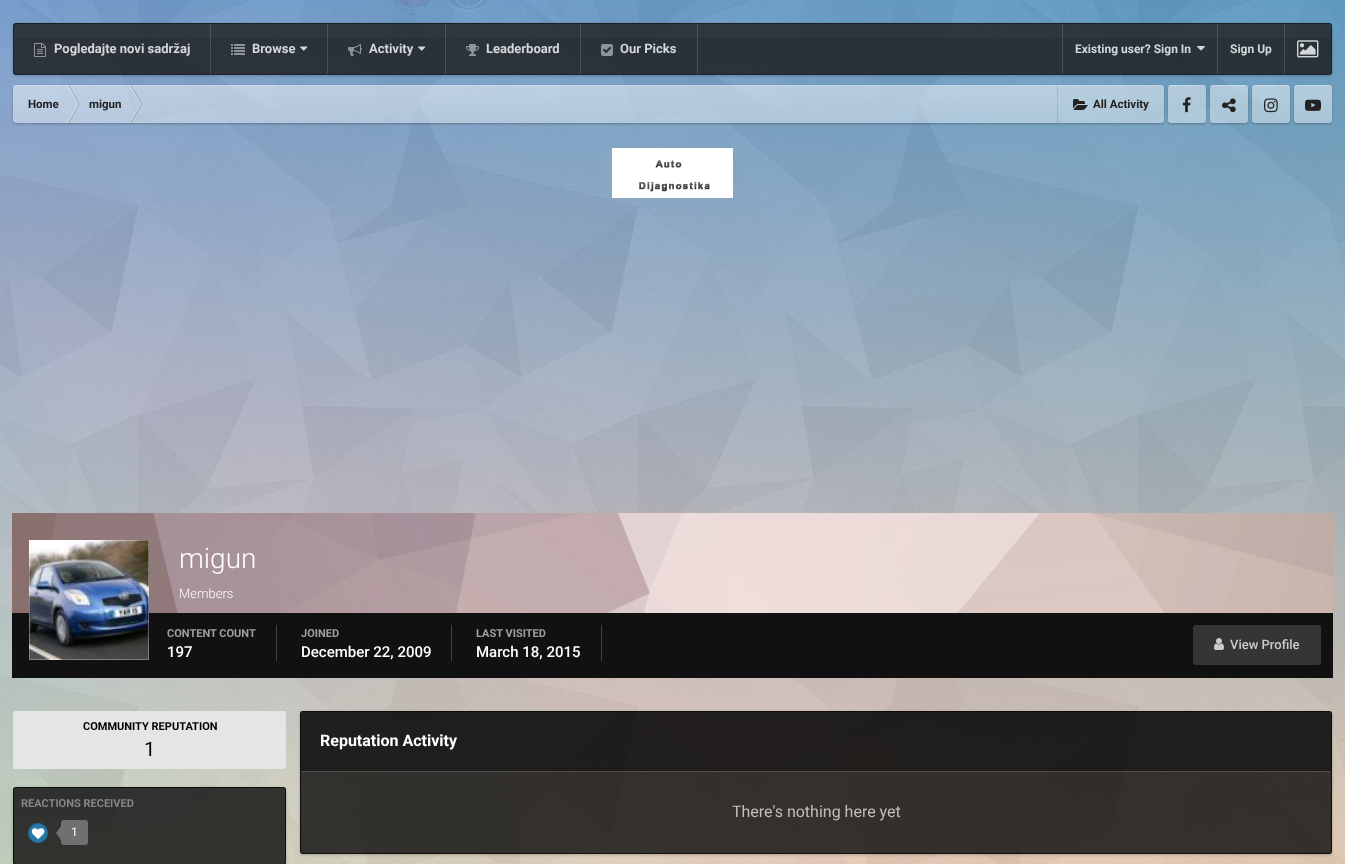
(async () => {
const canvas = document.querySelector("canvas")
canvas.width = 1345
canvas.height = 864
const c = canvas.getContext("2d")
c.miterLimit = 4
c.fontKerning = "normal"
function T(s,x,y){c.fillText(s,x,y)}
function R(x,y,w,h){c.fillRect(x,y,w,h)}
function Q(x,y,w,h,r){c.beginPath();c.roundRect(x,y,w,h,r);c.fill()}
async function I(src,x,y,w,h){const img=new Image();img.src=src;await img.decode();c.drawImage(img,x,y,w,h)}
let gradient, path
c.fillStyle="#fff"
R(0,0,1345,864)
gradient = c.createLinearGradient(1065,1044,280,-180)
gradient.addColorStop(0,"#fff3c5")
gradient.addColorStop(1,"#33a2f9")
c.fillStyle = gradient
R(0,0,1345,864)
gradient = c.createLinearGradient(280,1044,1065,-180)
gradient.addColorStop(0,"#ffe49b73")
gradient.addColorStop(.33,"#f6a39373")
gradient.addColorStop(1,"#07589c73")
c.fillStyle = gradient
R(0,0,1345,864)
await I("1.png",0,0,1345,864)
await I("2.png",393,0,97,16)
c.save()
path = new Path2D("M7 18h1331v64h-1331zm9 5h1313c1.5 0 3 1.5 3 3v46c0 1.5-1.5 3-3 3h-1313c-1.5 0-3-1.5-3-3v-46c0-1.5 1.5-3 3-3z")
c.clip(path,"evenodd")
c.fillStyle="#00000033"
c.filter="blur(1.5px)"
c.beginPath()
c.roundRect(13,24,1319,52,3)
c.fill()
c.filter="none"
c.restore()
c.fillStyle="#171717cc"
Q(13,23,1319,52,3)
gradient = c.createLinearGradient(673,24,673,74)
gradient.addColorStop(0,"#ffffff08")
gradient.addColorStop(1,"#ffffff00")
c.fillStyle = gradient
R(13,24,1319,14)
gradient = c.createLinearGradient(673,74,673,124)
gradient.addColorStop(0,"#ffffff08")
gradient.addColorStop(1,"#ffffff00")
c.fillStyle = gradient
R(13,74,1319,1)
c.beginPath()
c.roundRect(13.5,23.5,1318,51,2.5)
c.strokeStyle="#00000059"
c.stroke()
c.fillStyle="#ffffff26"
R(210,24,1,50)
await I("3.png",34,43,12,14)
c.font="bold 13px Roboto"
c.fillStyle="#d5d7d8"
T("Pogledajte novi sadržaj",54,53)
c.fillStyle="#ffffff26"
R(327,24,1,50)
await I("4.png",231,44,14,11)
c.fillStyle="#d5d7d8"
T("Browse",252,53)
await I("5.png",300,46,8,5)
c.fillStyle="#ffffff26"
R(445,24,1,50)
await I("6.png",348,44,14,12)
c.fillStyle="#d5d7d8"
T("Activity",369,53)
await I("7.png",418,46,8,5)
c.fillStyle="#ffffff26"
R(580,24,1,50)
await I("8.png",466,44,13,12)
c.fillStyle="#d5d7d8"
T("Leaderboard",486,53)
c.fillStyle="#ffffff26"
R(697,24,1,50)
await I("9.png",601,44,12,12)
c.fillStyle="#d5d7d8"
T("Our Picks",620,53)
c.fillStyle="#ffffff26"
R(1062,24,1,50)
R(1217,24,1,50)
c.font="bold 12px Roboto"
c.fillStyle="#d5d7d8"
T("Existing user? Sign In",1075,53)
await I("10.png",1197,46,8,5)
c.fillStyle="#ffffff26"
R(1284,24,1,50)
c.fillStyle="#d5d7d8"
T("Sign Up",1230,53)
await I("11.png",1297,40,22,18)
c.save()
path = new Path2D("M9 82h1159v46h-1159zm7 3h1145c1.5 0 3 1.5 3 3v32c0 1.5-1.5 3-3 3h-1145c-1.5 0-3-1.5-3-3v-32c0-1.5 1.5-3 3-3z")
c.clip(path,"evenodd")
c.fillStyle="#00000040"
c.filter="blur(1px)"
c.beginPath()
c.roundRect(13,86,1151,38,3)
c.fill()
c.filter="none"
c.restore()
c.fillStyle="#ffffff66"
Q(13,85,1151,38,3)
gradient = c.createLinearGradient(589,85,589,123)
gradient.addColorStop(0,"#ffffff26")
gradient.addColorStop(1,"#ffffff00")
c.fillStyle = gradient
Q(13,85,1151,38,3)
c.fillStyle="#ffffff26"
path = new Path2D("M16 86h1145c2 0 3 1 3 3v-1c0-2-1-3-3-3h-1145c-2 0-3 1-3 3v1c0-2 1-3 3-3z")
c.fill(path)
c.font="bold 11.5px Roboto"
c.fillStyle="#222"
T("Home",28,108)
c.fillStyle="#ffffff80"
path = new Path2D("M67 85h1l10.5 19h-1z")
c.fill(path)
c.fillStyle="#00000033"
path = new Path2D("M68 85h1l10.5 19h-1z")
c.fill(path)
c.fillStyle="#ffffff80"
path = new Path2D("M77.5 104h1l-10.5 19h-1z")
c.fill(path)
c.fillStyle="#00000033"
path = new Path2D("M78.5 104h1l-10.5 19h-1z")
c.fill(path)
c.fillStyle="#222"
T("migun",89,108)
c.fillStyle="#ffffff80"
path = new Path2D("M129 85h1l11 19h-1z")
c.fill(path)
c.fillStyle="#00000033"
path = new Path2D("M130 85h1l11 19h-1z")
c.fill(path)
c.fillStyle="#ffffff80"
path = new Path2D("M140 104h1l-11 19h-1z")
c.fill(path)
c.fillStyle="#00000033"
path = new Path2D("M141 104h1l-11 19h-1z")
c.fill(path)
c.fillStyle="#0000001a"
R(1057,85,1,38)
await I("12.png",1073,99,15,11)
c.fillStyle="#222"
T("All Activity",1093,108)
c.save()
path = new Path2D("M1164 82h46v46h-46zm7 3h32c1.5 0 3 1.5 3 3v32c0 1.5-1.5 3-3 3h-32c-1.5 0-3-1.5-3-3v-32c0-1.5 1.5-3 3-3z")
c.clip(path,"evenodd")
c.fillStyle="#00000040"
c.filter="blur(1px)"
c.beginPath()
c.roundRect(1168,86,38,38,3)
c.fill()
c.filter="none"
c.restore()
c.fillStyle="#ffffff66"
Q(1168,85,38,38,3)
gradient = c.createLinearGradient(1187,85,1187,123)
gradient.addColorStop(0,"#ffffff26")
gradient.addColorStop(1,"#ffffff00")
c.fillStyle = gradient
Q(1168,85,38,38,3)
c.fillStyle="#ffffff26"
path = new Path2D("M1171 86h32c2 0 3 1 3 3c0-5-4-4-8.5-4h-21c-4.5 0-8.5-1-8.5 4c0-2 1-3 3-3z")
c.fill(path)
path = new Path2D("M1171 86c-2 0-3 1-3 3c0-5 4-4 8.5-4h21c4.5 0 8.5-1 8.5 4c0-2-1-3-3-3z")
c.fill(path)
await I("13.png",1182,97,9,16)
c.save()
path = new Path2D("M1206 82h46v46h-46zm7 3h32c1.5 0 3 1.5 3 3v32c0 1.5-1.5 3-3 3h-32c-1.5 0-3-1.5-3-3v-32c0-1.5 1.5-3 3-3z")
c.clip(path,"evenodd")
c.fillStyle="#00000040"
c.filter="blur(1px)"
c.beginPath()
c.roundRect(1210,86,38,38,3)
c.fill()
c.filter="none"
c.restore()
c.fillStyle="#ffffff66"
Q(1210,85,38,38,3)
gradient = c.createLinearGradient(1229,85,1229,123)
gradient.addColorStop(0,"#ffffff26")
gradient.addColorStop(1,"#ffffff00")
c.fillStyle = gradient
Q(1210,85,38,38,3)
c.fillStyle="#ffffff26"
path = new Path2D("M1213 86h32c2 0 3 1 3 3c0-5-4-4-8.5-4h-21c-4.5 0-8.5-1-8.5 4c0-2 1-3 3-3z")
c.fill(path)
path = new Path2D("M1213 86c-2 0-3 1-3 3c0-5 4-4 8.5-4h21c4.5 0 8.5-1 8.5 4c0-2-1-3-3-3z")
c.fill(path)
await I("14.png",1222,98,14,15)
c.save()
path = new Path2D("M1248 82h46v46h-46zm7 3h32c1.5 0 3 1.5 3 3v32c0 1.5-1.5 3-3 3h-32c-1.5 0-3-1.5-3-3v-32c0-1.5 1.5-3 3-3z")
c.clip(path,"evenodd")
c.fillStyle="#00000040"
c.filter="blur(1px)"
c.beginPath()
c.roundRect(1252,86,38,38,3)
c.fill()
c.filter="none"
c.restore()
c.fillStyle="#ffffff66"
Q(1252,85,38,38,3)
gradient = c.createLinearGradient(1271,85,1271,123)
gradient.addColorStop(0,"#ffffff26")
gradient.addColorStop(1,"#ffffff00")
c.fillStyle = gradient
Q(1252,85,38,38,3)
c.fillStyle="#ffffff26"
path = new Path2D("M1255 86h32c2 0 3 1 3 3c0-5-4-4-8.5-4h-21c-4.5 0-8.5-1-8.5 4c0-2 1-3 3-3z")
c.fill(path)
path = new Path2D("M1255 86c-2 0-3 1-3 3c0-5 4-4 8.5-4h21c4.5 0 8.5-1 8.5 4c0-2-1-3-3-3z")
c.fill(path)
await I("15.png",1264,98,14,15)
c.save()
path = new Path2D("M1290 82h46v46h-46zm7 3h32c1.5 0 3 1.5 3 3v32c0 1.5-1.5 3-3 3h-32c-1.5 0-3-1.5-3-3v-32c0-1.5 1.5-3 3-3z")
c.clip(path,"evenodd")
c.fillStyle="#00000040"
c.filter="blur(1px)"
c.beginPath()
c.roundRect(1294,86,38,38,3)
c.fill()
c.filter="none"
c.restore()
c.fillStyle="#ffffff66"
Q(1294,85,38,38,3)
gradient = c.createLinearGradient(1313,85,1313,123)
gradient.addColorStop(0,"#ffffff26")
gradient.addColorStop(1,"#ffffff00")
c.fillStyle = gradient
Q(1294,85,38,38,3)
c.fillStyle="#ffffff26"
path = new Path2D("M1297 86h32c2 0 3 1 3 3c0-5-4-4-8.5-4h-21c-4.5 0-8.5-1-8.5 4c0-2 1-3 3-3z")
c.fill(path)
path = new Path2D("M1297 86c-2 0-3 1-3 3c0-5 4-4 8.5-4h21c4.5 0 8.5-1 8.5 4c0-2-1-3-3-3z")
c.fill(path)
await I("16.png",1305,99,16,12)
await I("17.png",612,148,121,50)
c.fillStyle="#ffa099"
R(12,513,1321,100)
await I("18.png",12,513,1321,100)
c.fillStyle="#111"
R(12,613,1321,65)
await I("19.png",29,540,120,120)
c.strokeStyle="#ffffff4d"
c.strokeRect(29.5,540.5,119,119)
c.font="300 28px Roboto"
c.fillStyle="#fff"
T("migun",179,568)
c.font="300 13px Roboto"
T("Members",179,598)
c.fillStyle="#414141"
R(276,625,1,36)
c.font="bold 11px Roboto"
c.fillStyle="#a0a0a0"
T("CONTENT COUNT",167,637)
c.font="500 15px Roboto"
c.fillStyle="#fff"
T("197",167,657)
c.fillStyle="#414141"
R(451,625,1,36)
c.font="bold 11px Roboto"
c.fillStyle="#a0a0a0"
T("JOINED",301,637)
c.font="500 15px Roboto"
c.fillStyle="#fff"
T("December 22, 2009",301,657)
c.fillStyle="#414141"
R(601,625,1,36)
c.font="bold 11px Roboto"
c.fillStyle="#a0a0a0"
T("LAST VISITED",476,637)
c.font="500 15px Roboto"
c.fillStyle="#fff"
T("March 18, 2015",476,657)
c.fillStyle="#353535"
Q(1193,625,128,40,3)
await I("20.png",1214,638,10,12)
c.font="500 13px Roboto"
c.fillStyle="#ccc"
T("View Profile",1230,649)
c.fillStyle="#e5e5e5"
Q(13,711,273,58,2)
c.font="bold 11px Roboto"
c.fillStyle="#000"
T("COMMUNITY REPUTATION",83,730)
c.font="20px Roboto"
T("1",144,756)
c.save()
path = new Path2D("M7 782h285v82h-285zm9 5h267c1.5 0 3 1.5 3 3v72c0 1.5-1.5 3-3 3h-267c-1.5 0-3-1.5-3-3v-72c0-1.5 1.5-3 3-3z")
c.clip(path,"evenodd")
c.fillStyle="#00000033"
c.filter="blur(1.5px)"
c.beginPath()
c.roundRect(13,788,273,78,3)
c.fill()
c.filter="none"
c.restore()
c.fillStyle="#0a0a0acc"
Q(13,787,273,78,3)
c.beginPath()
c.roundRect(13.5,787.5,272,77,2.5)
c.strokeStyle="#000000b3"
c.stroke()
c.font="bold 11px Roboto"
c.fillStyle="#878787"
T("REACTIONS RECEIVED",21,807)
await I("21.png",28,822,20,21)
c.fillStyle="#707070"
Q(61,820,27,25,3)
path = new Path2D("M61 826v14l-5-7z")
c.fill(path)
c.font="12px Roboto"
c.fillStyle="#fff"
T("1",71,836)
c.save()
path = new Path2D("M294 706h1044v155h-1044zm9 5h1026c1.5 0 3 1.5 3 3v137c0 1.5-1.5 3-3 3h-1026c-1.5 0-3-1.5-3-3v-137c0-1.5 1.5-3 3-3z")
c.clip(path,"evenodd")
c.fillStyle="#00000033"
c.filter="blur(1.5px)"
c.beginPath()
c.roundRect(300,712,1032,143,3)
c.fill()
c.filter="none"
c.restore()
c.fillStyle="#0a0a0acc"
Q(300,711,1032,143,3)
c.beginPath()
c.roundRect(300.5,711.5,1031,142,2.5)
c.stroke()
c.fillStyle="#ffffff26"
R(301,771,1030,1)
c.fillStyle="#00000059"
c.beginPath()
c.roundRect(301,712,1030,59,[3,3,0,0])
c.fill()
c.fillStyle="#0000001a"
R(301,770,1030,1)
c.font="bold 16px Roboto"
c.fillStyle="#fff"
T("Reputation Activity",320,746)
c.font="16px Roboto"
c.fillStyle="#bfbfbf"
T("There's nothing here yet",732,817)
})()
